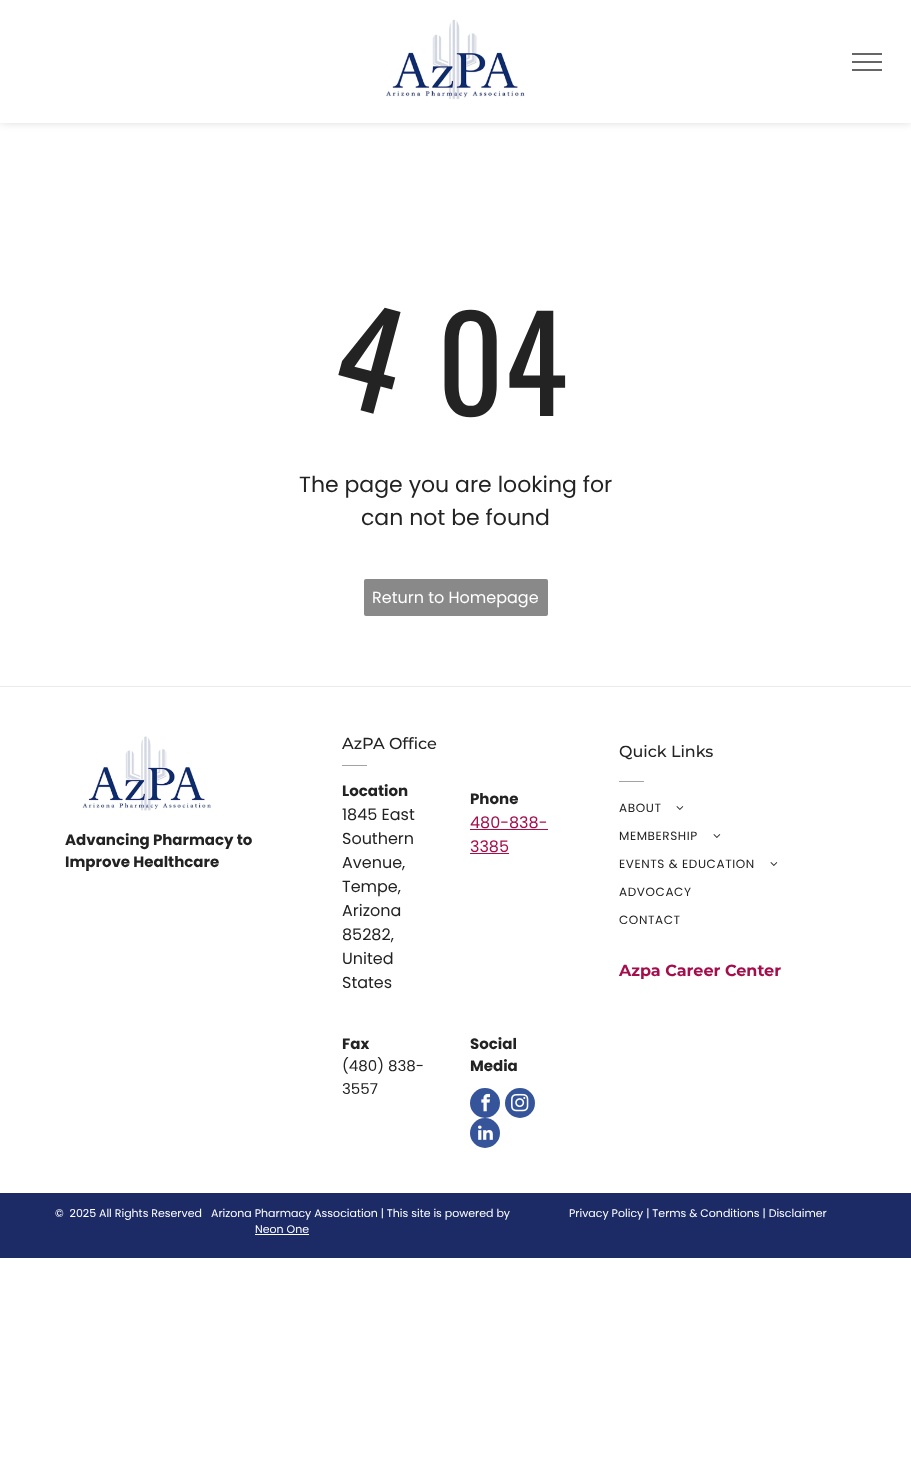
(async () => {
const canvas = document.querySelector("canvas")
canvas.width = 911
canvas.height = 1480
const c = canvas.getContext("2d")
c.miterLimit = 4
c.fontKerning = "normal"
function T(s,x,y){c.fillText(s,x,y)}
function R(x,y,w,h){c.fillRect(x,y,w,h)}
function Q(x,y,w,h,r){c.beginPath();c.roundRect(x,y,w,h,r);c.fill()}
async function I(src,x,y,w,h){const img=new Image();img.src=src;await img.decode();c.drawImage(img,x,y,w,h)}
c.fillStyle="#fff"
R(0,0,911,1480)
c.fillStyle="#00000040"
c.filter="blur(5.5px)"
c.beginPath()
c.rect(0,-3,911,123)
c.fill()
c.filter="none"
c.fillStyle="#fff"
R(0,0,911,123)
await I("1.png",386,19,139,81)
c.fillStyle="#666"
R(852,53,30,2)
R(852,61,30,2)
R(852,69,30,2)
c.font="130px Oswald"
c.fillStyle="#232323"
c.save()
c.translate(326,401)
c.rotate(15 * Math.PI / 180)
c.fillText("4",0,0)
c.restore()
T("04",437,416)
c.font="22px Poppins"
T("The page you are looking for",299,492)
T("can not be found",361,525)
c.fillStyle="#898989"
Q(364,579,184,37,2)
c.font="16px Poppins"
c.fillStyle="#fff"
T("Return to Homepage",372,603)
c.fillStyle="#ebebeb"
R(0,686,911,1)
await I("2.png",82,736,129,75)
c.font="bold 15px Poppins"
c.fillStyle="#232323"
T("Advancing Pharmacy to",65,845)
T("Improve Healthcare",65,867)
c.font="500 16px Montserrat"
T("AzPA Office",342,749)
c.fillStyle="#a3a3a3"
R(342,765,25,1)
c.font="bold 15px Poppins"
c.fillStyle="#232323"
T("Location",342,796)
c.font="16px Poppins"
T("1845 East",342,820)
T("Southern",342,844)
T("Avenue,",342,868)
T("Tempe,",342,892)
T("Arizona",342,916)
T("85282,",342,940)
T("United",342,964)
T("States",342,988)
c.font="bold 15px Poppins"
T("Phone",470,804)
c.font="16px Poppins"
c.fillStyle="#a40e4c"
T("480-838-",470,828)
R(470,829,78,1)
T("3385",470,852)
R(470,853,39,1)
c.font="bold 15px Poppins"
c.fillStyle="#232323"
T("Fax",342,1049)
c.font="15px Poppins"
T("(480) 838-",342,1071)
T("3557",342,1094)
c.font="bold 15px Poppins"
T("Social",470,1049)
T("Media",470,1071)
c.fillStyle="#36549a"
c.beginPath()
c.arc(485,1103,15,0,7)
c.fill()
await I("3.png",481,1093,9,19)
c.beginPath()
c.arc(520,1103,15,0,7)
c.fill()
await I("4.png",511,1093,18,19)
c.beginPath()
c.arc(485,1133,15,0,7)
c.fill()
await I("5.png",478,1125,15,15)
c.font="500 16px Montserrat"
c.fillStyle="#232323"
T("Quick Links",619,757)
c.fillStyle="#a3a3a3"
R(619,781,25,1)
c.letterSpacing="0.6px"
c.font="12px Poppins"
c.fillStyle="#232323"
T("ABOUT",619,812)
await I("6.png",676,806,8,4)
T("MEMBERSHIP",619,840)
await I("6.png",713,834,8,4)
T("EVENTS & EDUCATION",619,868)
await I("6.png",770,862,8,4)
T("ADVOCACY",619,896)
T("CONTACT",619,924)
c.letterSpacing="0px"
c.font="bold 16px Montserrat"
c.fillStyle="#a40e4c"
T("Azpa Career Center",619,976)
c.fillStyle="#1c2a66"
R(0,1193,911,65)
c.font="11px Poppins"
c.fillStyle="#fff"
T("©  2025 All Rights Reserved",55,1217)
T("Arizona Pharmacy Association | This site is powered by",211,1217)
T("Neon One",255,1233)
R(255,1234,54,1)
T("Privacy Policy | Terms & Conditions | Disclaimer",569,1217)
})()
